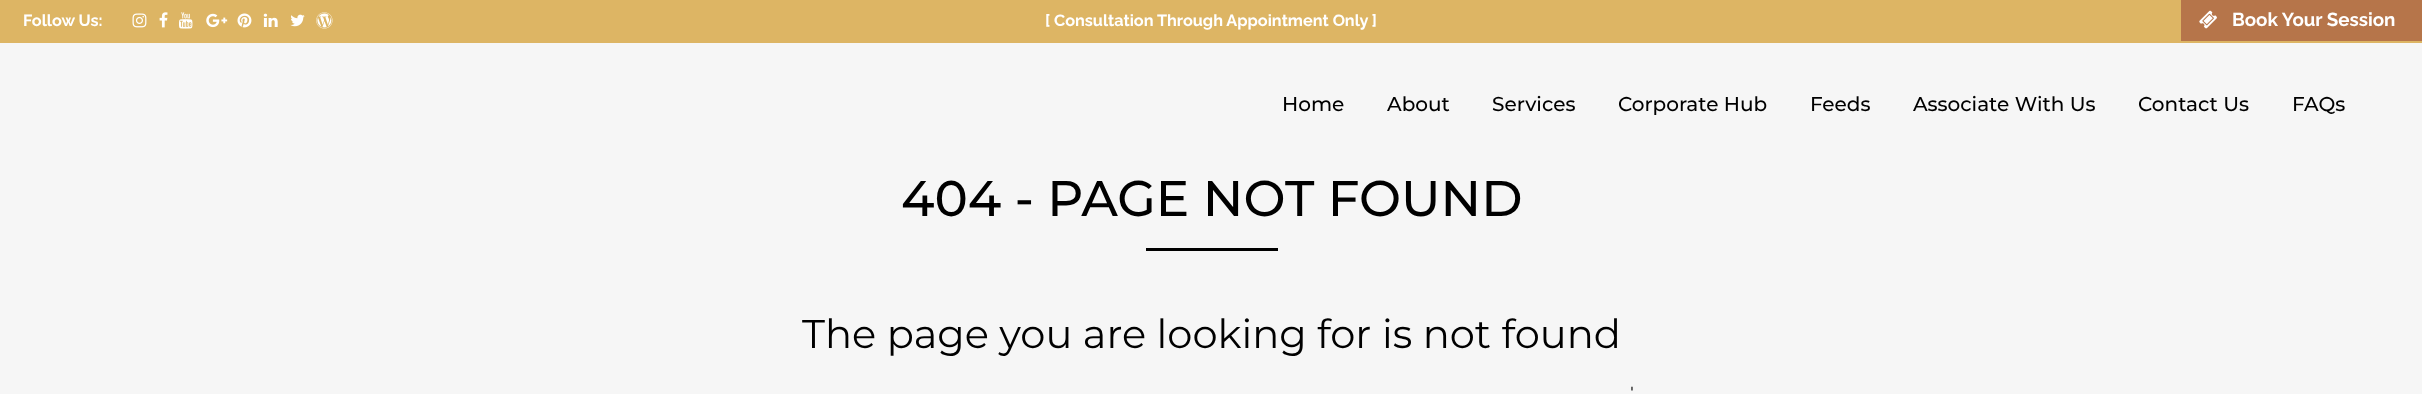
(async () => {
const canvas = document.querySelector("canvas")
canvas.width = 2422
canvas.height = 394
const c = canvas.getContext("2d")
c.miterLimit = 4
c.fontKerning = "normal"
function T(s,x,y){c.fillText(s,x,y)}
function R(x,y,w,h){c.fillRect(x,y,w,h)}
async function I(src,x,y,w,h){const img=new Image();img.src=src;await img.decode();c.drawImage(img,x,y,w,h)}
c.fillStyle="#f6f6f6"
R(0,0,2422,394)
c.fillStyle="#ddb564"
R(0,0,2422,43)
c.font="bold 16.25px Raleway"
c.fillStyle="#fff"
T("Follow Us:",23,26)
await I("1.png",132,13,15,15)
await I("2.png",159,12,9,16)
await I("3.png",179,12,14,17)
await I("4.png",206,13,22,15)
await I("5.png",237,13,15,15)
await I("6.png",263,13,15,14)
await I("7.png",290,14,15,13)
await I("8.png",316,12,17,17)
T("[ Consultation Through Appointment Only ]",1045,26)
c.fillStyle="#b6754a"
R(2181,0,241,41)
await I("9.png",2199,10,18,19)
c.font="bold 18.75px Raleway"
c.fillStyle="#fff"
T("Book Your Session",2232,26)
c.font="500 20px Montserrat"
c.fillStyle="#000"
T("Home",1282,111)
T("About",1387,111)
T("Services",1492,111)
T("Corporate Hub",1618,111)
T("Feeds",1810,111)
T("Associate With Us",1913,111)
T("Contact Us",2138,111)
T("FAQs",2292,111)
c.font="500 50px Montserrat"
T("404 - PAGE NOT FOUND",901,216)
R(1146,248,132,3)
c.font="40px Montserrat"
T("The page you are looking for is not found",802,348)
c.font="20px Raleway"
T("'",1630,401)
})()
